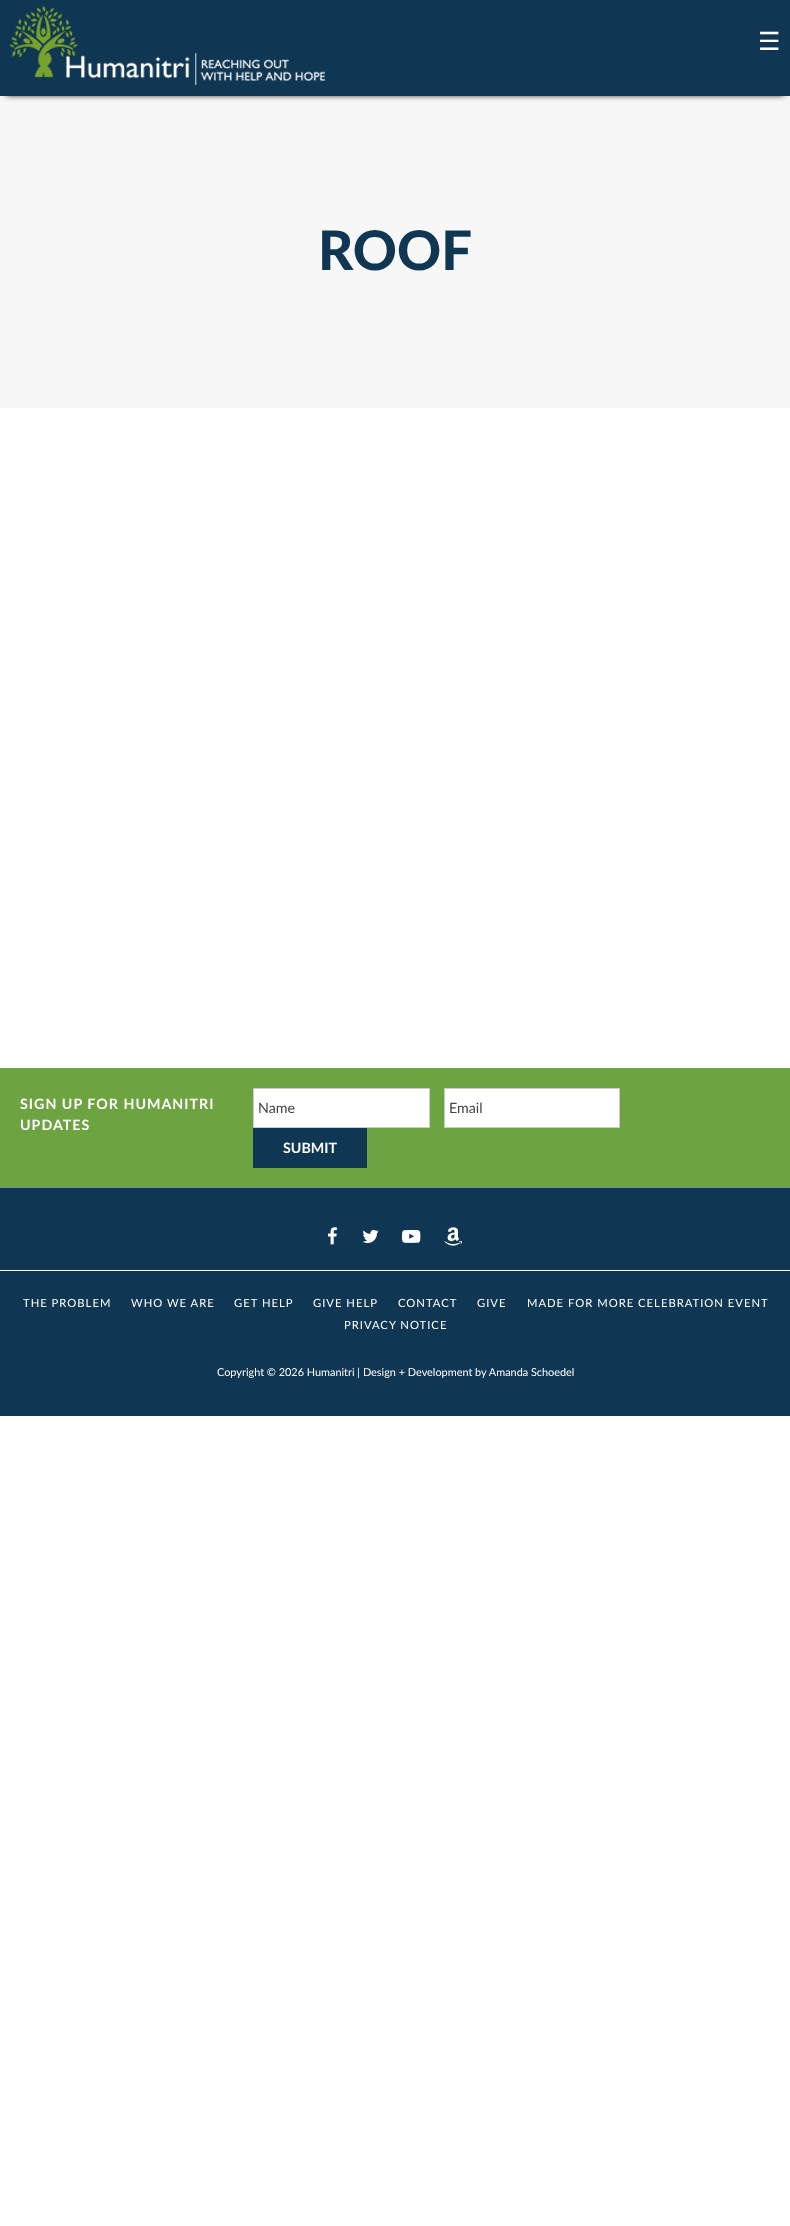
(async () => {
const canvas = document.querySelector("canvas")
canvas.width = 790
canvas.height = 2226
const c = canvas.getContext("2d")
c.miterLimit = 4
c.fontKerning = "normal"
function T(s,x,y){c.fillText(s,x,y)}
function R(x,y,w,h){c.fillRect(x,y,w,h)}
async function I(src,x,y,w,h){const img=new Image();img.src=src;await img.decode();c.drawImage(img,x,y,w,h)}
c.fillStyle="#fff"
R(0,0,790,2226)
c.fillStyle="#f7f7f7"
R(0,96,790,312)
c.fillStyle="#000"
c.filter="blur(3px)"
c.beginPath()
c.rect(6,11,778,84)
c.fill()
c.filter="none"
c.fillStyle="#0f3652"
R(0,0,790,96)
await I("1.png",10,6,315,79)
c.font="25px DejaVu Sans"
c.fillStyle="#fff"
T("☰",758,50)
c.font="900 54.5px Lato"
c.fillStyle="#0f3652"
T("ROOF",318,270)
c.fillStyle="#6da341"
R(0,1068,790,120)
c.letterSpacing="1px"
c.font="bold 14.25px Lato"
c.fillStyle="#fff"
T("SIGN UP FOR HUMANITRI",20,1109)
T("UPDATES",20,1130)
c.beginPath()
c.rect(253.5,1088.5,176,39)
c.fill()
c.strokeStyle="#ccc"
c.stroke()
c.letterSpacing="0px"
c.font="14.25px Lato"
c.fillStyle="#444"
T("Name",258,1113)
c.fillStyle="#fff"
c.beginPath()
c.rect(444.5,1088.5,175,39)
c.fill()
c.stroke()
c.fillStyle="#444"
T("Email",449,1113)
c.fillStyle="#0f3652"
R(253,1128,114,40)
c.font="bold 14.25px Lato"
c.fillStyle="#fff"
T("SUBMIT",283,1153)
c.fillStyle="#0f3652"
R(0,1188,790,228)
await I("2.png",327,1227,10,18)
await I("3.png",362,1229,17,14)
await I("4.png",402,1230,19,13)
await I("5.png",444,1227,18,19)
c.fillStyle="#fff"
R(0,1270,790,1)
c.letterSpacing="1px"
c.font="11.25px Lato"
T("THE PROBLEM",23,1307)
T("WHO WE ARE",131,1307)
T("GET HELP",234,1307)
T("GIVE HELP",313,1307)
T("CONTACT",398,1307)
T("GIVE",477,1307)
T("MADE FOR MORE CELEBRATION EVENT",527,1307)
T("PRIVACY NOTICE",344,1329)
c.letterSpacing="0px"
c.font="10.9px Lato"
T("Copyright © 2026 Humanitri | Design + Development by Amanda Schoedel",217,1376)
})()
